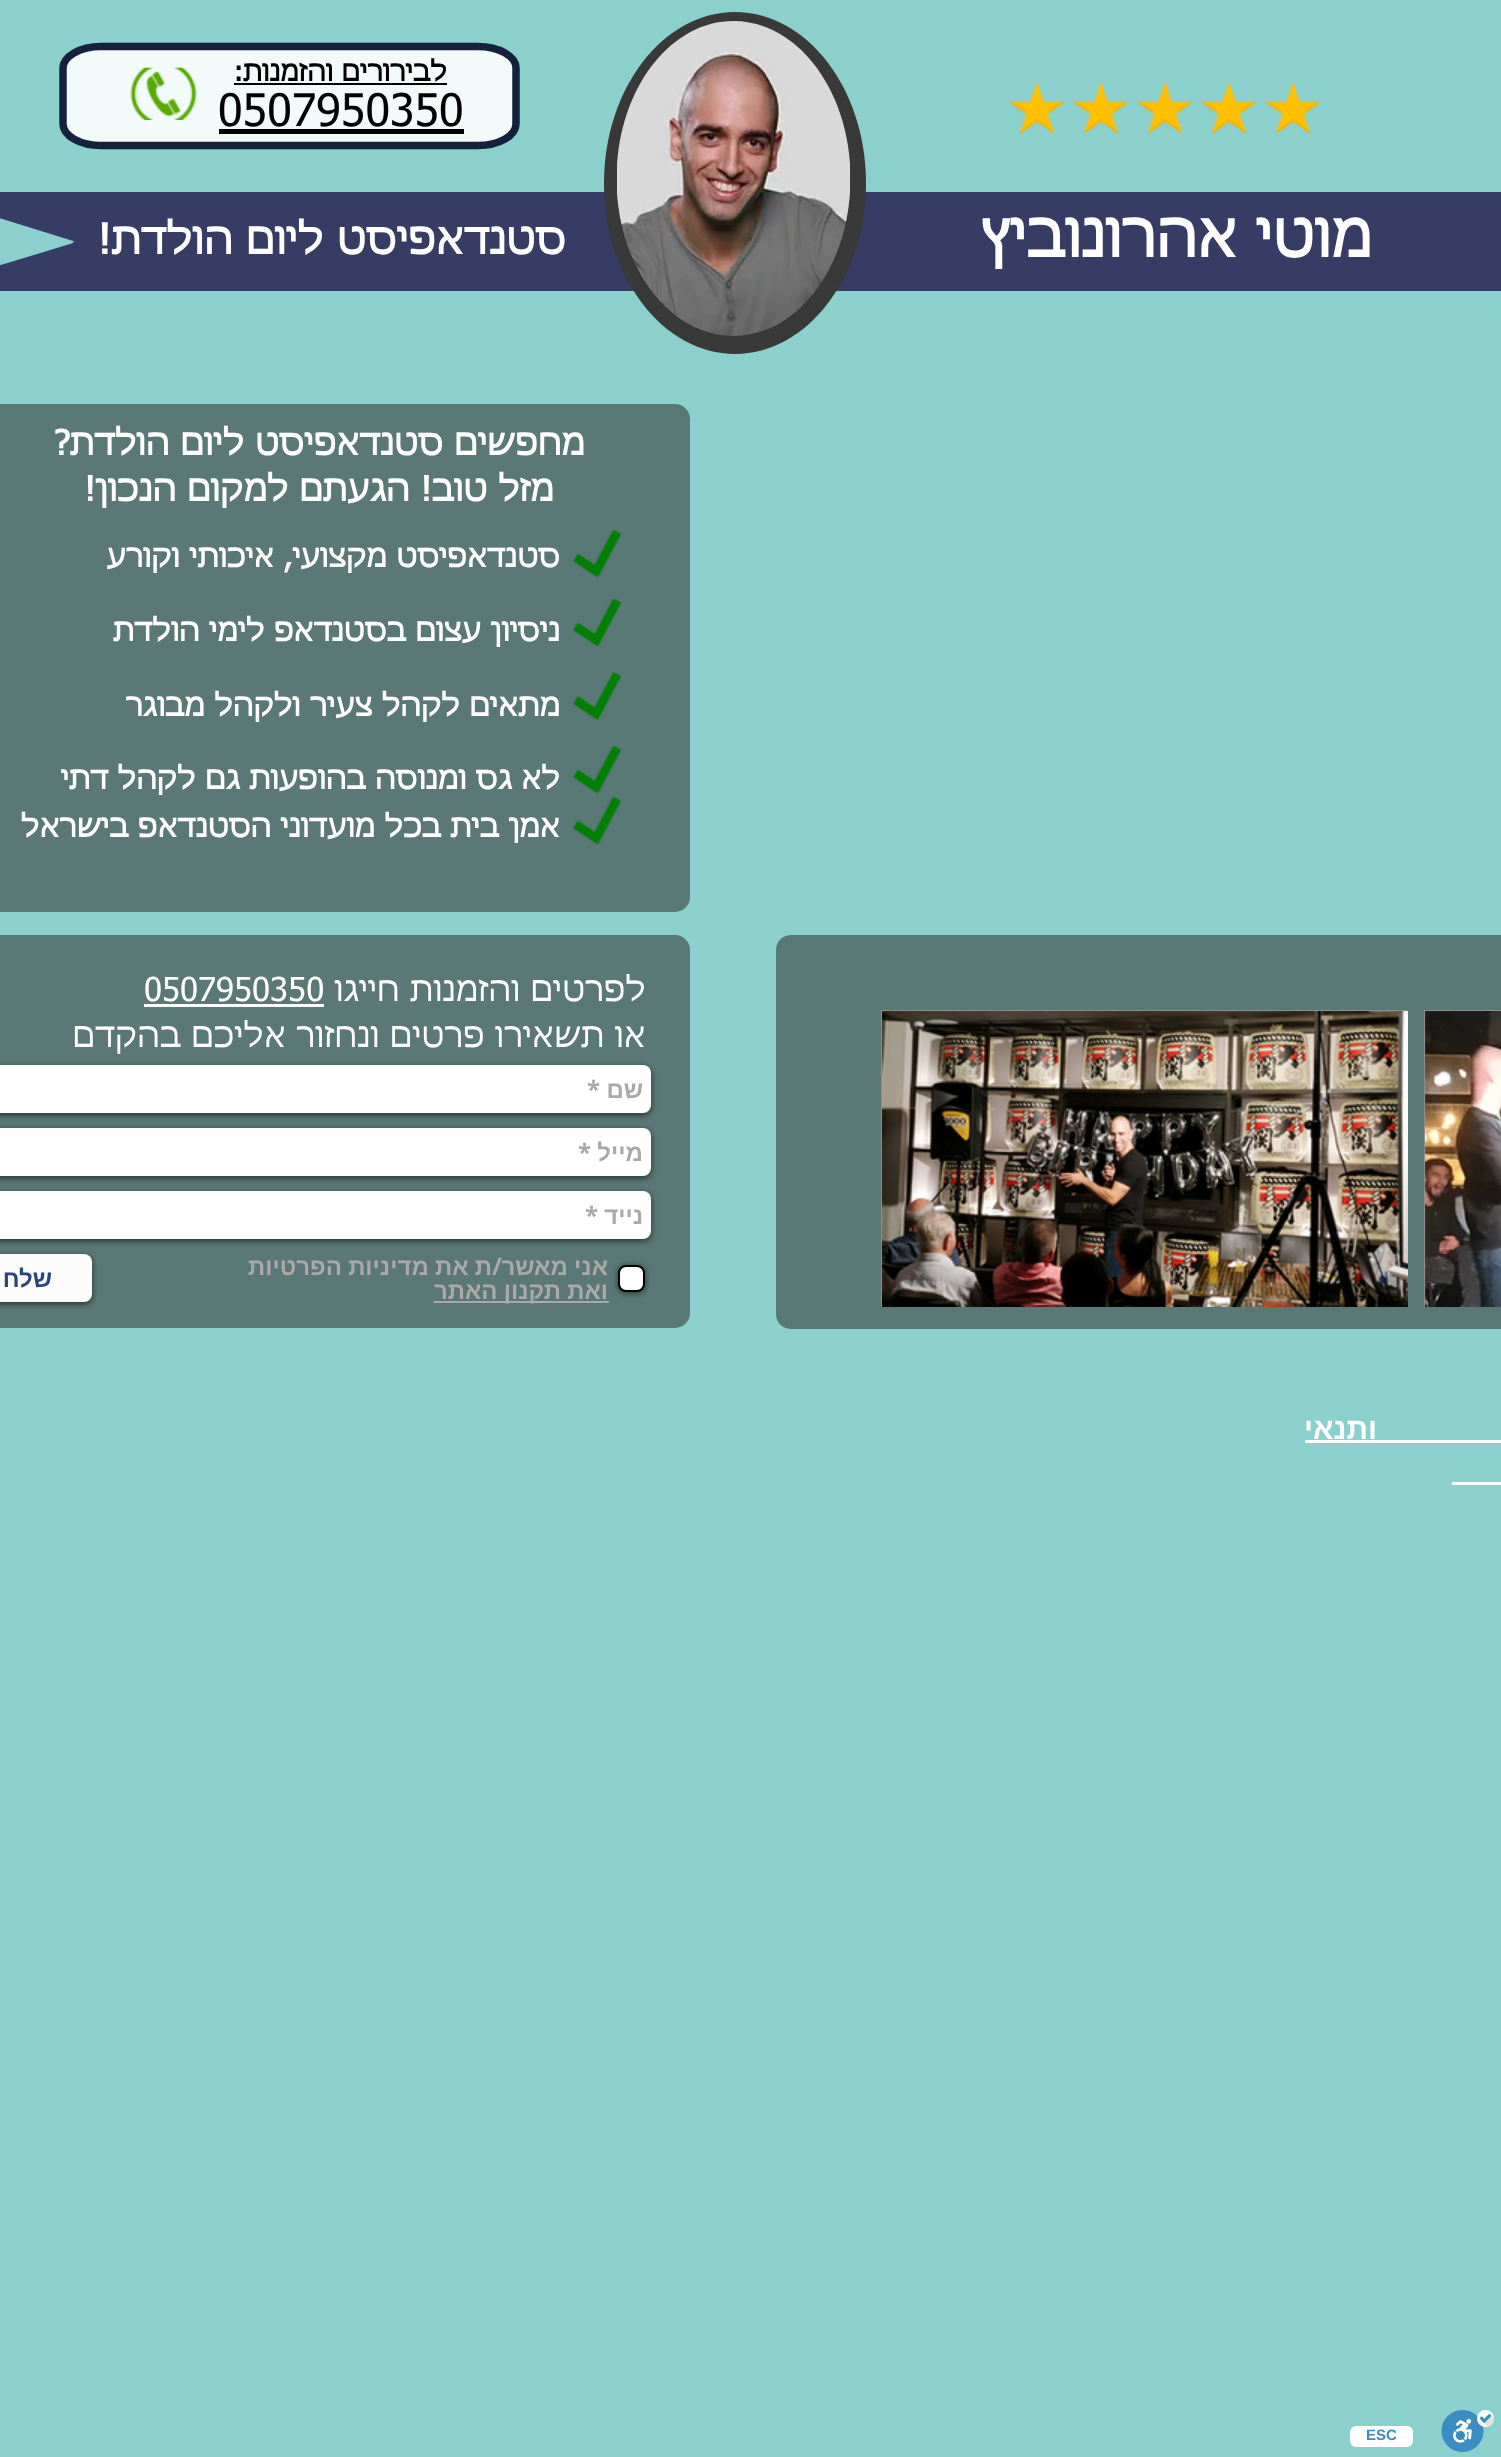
(async () => {
const canvas = document.querySelector("canvas")
canvas.width = 1501
canvas.height = 2457
const c = canvas.getContext("2d")
c.miterLimit = 4
c.fontKerning = "normal"
function T(s,x,y){c.fillText(s,x,y)}
function R(x,y,w,h){c.fillRect(x,y,w,h)}
function Q(x,y,w,h,r){c.beginPath();c.roundRect(x,y,w,h,r);c.fill()}
async function I(src,x,y,w,h){const img=new Image();img.src=src;await img.decode();c.drawImage(img,x,y,w,h)}
let path
c.fillStyle="#8bd0cd"
R(0,0,1501,2457)
await I("1.png",1008,81,314,54)
c.fillStyle="#363c63"
path = new Path2D("M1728 197c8-2 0-5-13-5h-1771c-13 0-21 3-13 5l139 43c5 1 5 2 0 4l-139 42c-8 2 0 5 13 5h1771c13 0 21-3 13-5l-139-43c-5-1-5-2 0-4z")
c.fill(path)
c.fillStyle="#393939"
path = new Path2D("M866 183c0 94-59 171-131 171c-72 0-131-77-131-171c0-94 59-171 131-171c72 0 131 77 131 171z")
c.fill(path)
await I("2.png",617,21,234,315)
c.fillStyle="#f2fafa"
path = new Path2D("M478 145h-377c-21 0-38-9-38-21v-56c0-12 17-22 38-22h377c21 0 38 10 38 22v56c0 12-17 21-38 21z")
c.fill(path)
path = new Path2D("M478 145.5h-377c-20.5 0-38-9.5-38-21.5v-56c0-11.5 17-21.5 38-21.5h377c20.5 0 38 9.5 38 21.5v56c0 12-17.5 21.5-38 21.5z")
c.strokeStyle="#16223d"
c.lineWidth=7.5
c.stroke(path)
c.direction="rtl"
c.font="bold 27px tahoma"
c.fillStyle="#000"
T("לבירורים והזמנות:",447,81)
R(234,83,213,2)
await I("3.png",130,67,67,53)
c.direction="ltr"
c.font="45px tahoma"
T("0507950350",218,126)
R(219,129,245,5)
c.direction="rtl"
c.font="bold 60px tahoma"
c.fillStyle="#fff"
T("מוטי אהרונוביץ",1372,257)
c.font="bold 42px tahoma"
T("סטנדאפיסט ליום הולדת!",566,254)
c.fillStyle="#597876"
c.beginPath()
c.roundRect(0,404,690,508,[0,15,15,0])
c.fill()
c.font="bold 34.5px tahoma"
c.fillStyle="#fff"
T("מחפשים סטנדאפיסט ליום הולדת?",585,455)
await I("4.png",573,529,48,49)
T("מזל טוב! הגעתם למקום הנכון!",554,501)
await I("4.png",573,796,48,49)
c.font="bold 30px tahoma"
T("אמן בית בכל מועדוני הסטנדאפ בישראל",560,837)
T("סטנדאפיסט מקצועי, איכותי וקורע",560,567)
await I("4.png",573,598,48,49)
T("ניסיון עצום בסטנדאפ לימי הולדת",560,641)
await I("5.png",573,672,48,48)
T("מתאים לקהל צעיר ולקהל מבוגר",560,716)
await I("4.png",573,745,48,49)
T("לא גס ומנוסה בהופעות גם לקהל דתי",560,789)
c.fillStyle="#597876"
path = new Path2D("M791 935h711v394h-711c-8.5 0-15-6.5-15-15v-364c0-8.5 6.5-15 15-15z")
c.fill(path)
c.fillStyle="#8d8d8d"
R(1424,1010,77,297)
await I("6.png",1425,1011,76,296)
R(881,1010,526,297)
await I("7.png",882,1011,526,296)
c.fillStyle="#597876"
c.beginPath()
c.roundRect(0,935,690,393,[0,15,15,0])
c.fill()
c.font="33px 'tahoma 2'"
c.fillStyle="#fff"
T("לפרטים והזמנות חייגו",646,1001)
c.direction="ltr"
c.font="33px tahoma"
T("0507950350",144,1001)
R(144,1004,180,3)
c.direction="rtl"
c.font="33px 'tahoma 2'"
T("או תשאירו פרטים ונחזור אליכם בהקדם",646,1047)
c.fillStyle="#00000099"
c.filter="blur(3px)"
c.beginPath()
c.roundRect(-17,1067,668,48,8)
c.fill()
c.filter="none"
c.fillStyle="#fff"
c.beginPath()
c.roundRect(0,1065,651,48,[0,8,8,0])
c.fill()
c.font="bold 24px Liberation Sans"
c.fillStyle="#a9a9a9"
T("שם",643,1098)
c.font="bold 24px Open Sans"
T("*",600,1098)
c.fillStyle="#00000099"
c.filter="blur(3px)"
c.beginPath()
c.roundRect(-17,1130,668,48,8)
c.fill()
c.filter="none"
c.fillStyle="#fff"
c.beginPath()
c.roundRect(0,1128,651,48,[0,8,8,0])
c.fill()
c.font="bold 24px Liberation Sans"
c.fillStyle="#a9a9a9"
T("מייל",643,1161)
c.font="bold 24px Open Sans"
T("*",591,1161)
c.fillStyle="#00000099"
c.filter="blur(3px)"
c.beginPath()
c.roundRect(-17,1193,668,48,8)
c.fill()
c.filter="none"
c.fillStyle="#fff"
c.beginPath()
c.roundRect(0,1191,651,48,[0,8,8,0])
c.fill()
c.font="bold 24px Liberation Sans"
c.fillStyle="#a9a9a9"
T("נייד",643,1224)
c.font="bold 24px Open Sans"
T("*",598,1224)
R(434,1301,175,2)
c.fillStyle="#00000099"
c.filter="blur(3px)"
c.beginPath()
c.roundRect(618,1266,27,27,8)
c.fill()
c.filter="none"
c.fillStyle="#fff"
c.beginPath()
c.roundRect(619,1266,25,25,7)
c.fill()
c.strokeStyle="#000"
c.lineWidth=2
c.stroke()
c.wordSpacing="-0.5px"
c.font="bold 24px Liberation Sans"
c.fillStyle="#a9a9a9"
T("אני מאשר",608,1275)
c.wordSpacing="0px"
c.font="bold 24px Open Sans"
T("/",502,1275)
c.wordSpacing="-0.5px"
c.font="bold 24px Liberation Sans"
T("ת את מדיניות הפרטיות",492,1275)
T("ואת תקנון האתר",608,1299)
c.fillStyle="#00000099"
c.filter="blur(3px)"
c.beginPath()
c.roundRect(-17,1256,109,48,8)
c.fill()
c.filter="none"
c.fillStyle="#fcfcfc"
c.beginPath()
c.roundRect(0,1254,92,48,[0,8,8,0])
c.fill()
c.wordSpacing="0px"
c.fillStyle="#2c447a"
T("שלח",52,1287)
c.font="bold 30px Liberation Sans"
c.fillStyle="#fff"
T("ותנאי",1377,1439)
R(1305,1440,196,3)
R(1452,1482,49,3)
await I("8.png",1441,2410,53,42)
Q(1350,2426,63,21,6)
c.direction="ltr"
c.font="bold 15px Liberation Sans"
c.fillStyle="#3a8dc2"
T("ESC",1366,2440)
})()
